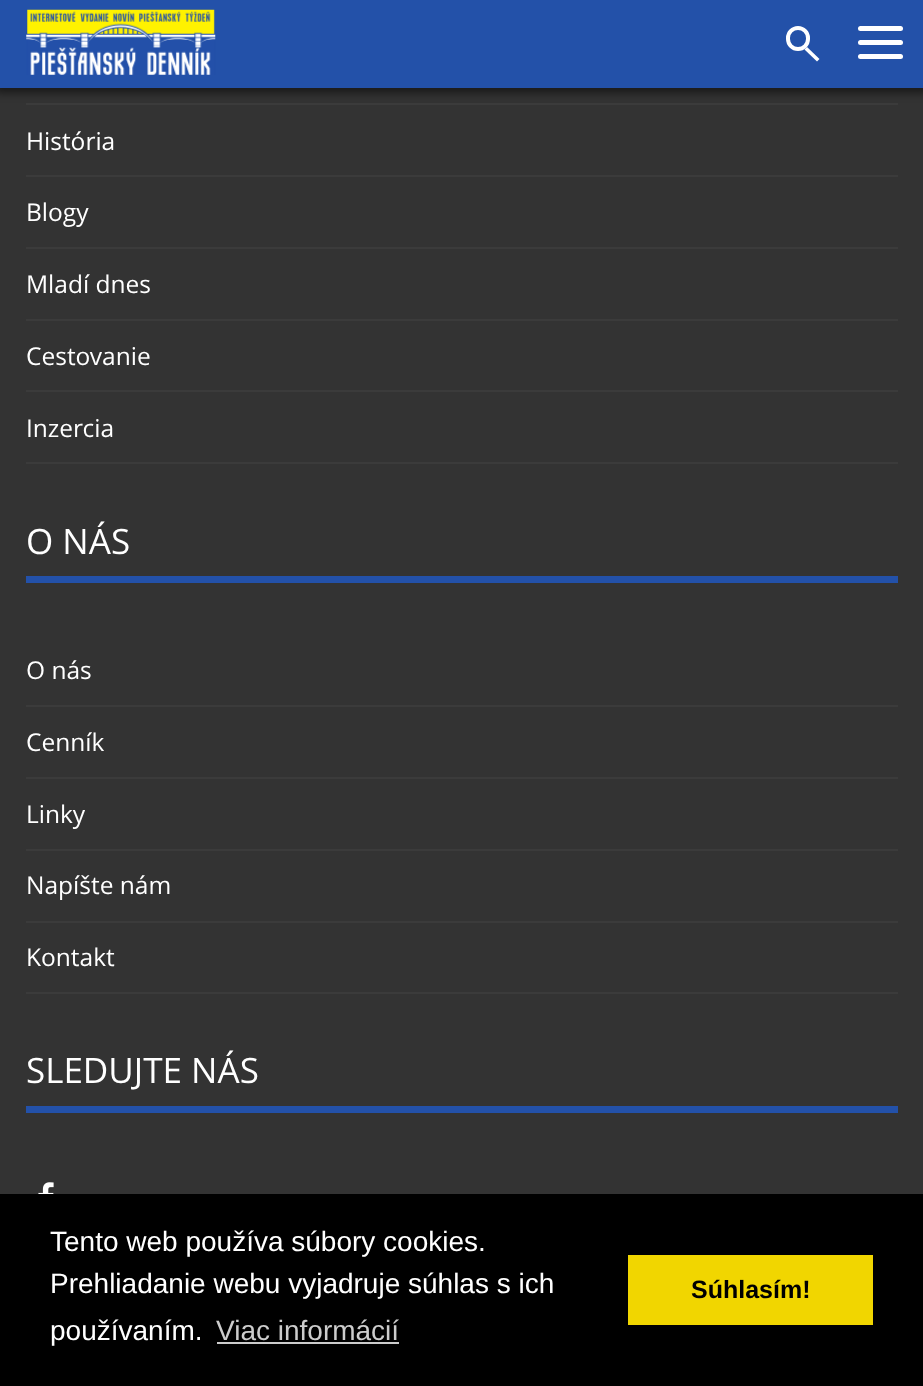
(async () => {
const canvas = document.querySelector("canvas")
canvas.width = 923
canvas.height = 1386
const c = canvas.getContext("2d")
c.miterLimit = 4
c.fontKerning = "normal"
function T(s,x,y){c.fillText(s,x,y)}
function R(x,y,w,h){c.fillRect(x,y,w,h)}
function Q(x,y,w,h,r){c.beginPath();c.roundRect(x,y,w,h,r);c.fill()}
async function I(src,x,y,w,h){const img=new Image();img.src=src;await img.decode();c.drawImage(img,x,y,w,h)}
let path
c.fillStyle="#333"
R(0,0,923,1386)
c.fillStyle="#3b3b3b"
R(26,103,872,2)
c.fillStyle="#00000080"
c.filter="blur(4.5px)"
c.beginPath()
c.rect(-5,-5,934,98)
c.fill()
c.filter="none"
c.fillStyle="#2351a9"
R(0,0,923,88)
await I("1.png",26,9,190,66)
c.beginPath()
c.roundRect(788,28,20,21,10)
c.strokeStyle="#fff"
c.lineWidth=4
c.stroke()
c.fillStyle="#fff"
path = new Path2D("M804.5 49.5l2.5-2.5l12.5 12l-2.5 2.5z")
c.fill(path)
Q(858,26,45,5,2.5)
Q(858,40,45,5,2.5)
Q(858,54,45,5,2.5)
c.fillStyle="#3b3b3b"
R(26,175,872,2)
c.font="24.5px Open Sans"
c.fillStyle="#fff"
T("História",26,150)
c.fillStyle="#3b3b3b"
R(26,247,872,2)
c.fillStyle="#fff"
T("Blogy",26,221)
c.fillStyle="#3b3b3b"
R(26,319,872,2)
c.fillStyle="#fff"
T("Mladí dnes",26,293)
c.fillStyle="#3b3b3b"
R(26,390,872,2)
c.fillStyle="#fff"
T("Cestovanie",26,365)
c.fillStyle="#3b3b3b"
R(26,462,872,2)
c.fillStyle="#fff"
T("Inzercia",26,437)
c.fillStyle="#2351a9"
R(26,576,872,7)
c.font="35px Open Sans"
c.fillStyle="#fff"
T("O NÁS",26,554)
c.fillStyle="#3b3b3b"
R(26,705,872,2)
c.font="24.5px Open Sans"
c.fillStyle="#fff"
T("O nás",26,679)
c.fillStyle="#3b3b3b"
R(26,777,872,2)
c.fillStyle="#fff"
T("Cenník",26,751)
c.fillStyle="#3b3b3b"
R(26,849,872,2)
c.fillStyle="#fff"
T("Linky",26,823)
c.fillStyle="#3b3b3b"
R(26,921,872,2)
c.fillStyle="#fff"
T("Napíšte nám",26,894)
c.fillStyle="#3b3b3b"
R(26,992,872,2)
c.fillStyle="#fff"
T("Kontakt",26,966)
c.fillStyle="#2351a9"
R(26,1106,872,7)
c.font="35px Open Sans"
c.fillStyle="#fff"
T("SLEDUJTE NÁS",26,1083)
await I("2.png",38,1182,16,12)
c.fillStyle="#000"
R(0,1194,923,192)
c.font="28px Liberation Sans"
c.fillStyle="#fff"
T("Tento web používa súbory cookies.",50,1251)
T("Prehliadanie webu vyjadruje súhlas s ich",50,1293)
T("používaním.",50,1340)
c.fillStyle="#ccc"
T("Viac informácií",216,1340)
R(217,1342,182,2)
c.fillStyle="#f1d600"
R(628,1255,245,70)
c.font="bold 25px Liberation Sans"
c.fillStyle="#000"
T("Súhlasím!",691,1298)
})()
